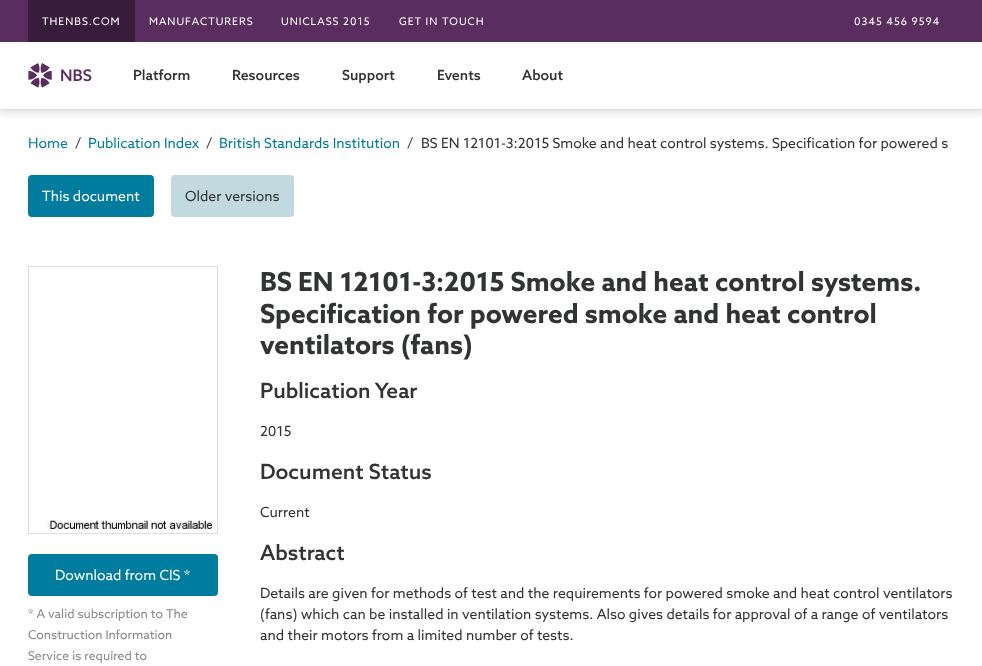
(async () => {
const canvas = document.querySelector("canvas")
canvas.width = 982
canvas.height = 666
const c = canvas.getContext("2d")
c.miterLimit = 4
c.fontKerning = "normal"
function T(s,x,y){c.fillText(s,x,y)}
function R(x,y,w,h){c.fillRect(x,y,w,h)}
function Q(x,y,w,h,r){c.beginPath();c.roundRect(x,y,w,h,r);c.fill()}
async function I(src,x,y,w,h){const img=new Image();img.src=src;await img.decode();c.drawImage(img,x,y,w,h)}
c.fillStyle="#fff"
R(0,0,982,666)
c.save()
c.beginPath()
c.rect(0,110,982,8)
c.clip()
c.fillStyle="#00000026"
c.filter="blur(5px)"
c.beginPath()
c.rect(-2,-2,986,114)
c.fill()
c.filter="none"
c.restore()
c.fillStyle="#592d5e"
R(0,0,982,42)
c.fillStyle="#381c3c"
R(28,0,107,42)
c.letterSpacing="1px"
c.font="10.5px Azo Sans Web"
c.fillStyle="#fff"
T("THENBS.COM",42,25)
T("MANUFACTURERS",149,25)
T("UNICLASS 2015",281,25)
T("GET IN TOUCH",399,25)
T("0345 456 9594",854,25)
c.fillStyle="#dbe0de"
R(0,109,982,1)
await I("1.png",28,63,24,25)
c.letterSpacing="0px"
c.font="500 16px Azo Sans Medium"
c.fillStyle="#592d5e"
T("NBS",60,81)
c.font="500 14px Azo Sans Medium"
c.fillStyle="#323333"
T("Platform",133,80)
T("Resources",232,80)
T("Support",342,80)
T("Events",437,80)
T("About",522,80)
c.font="14px Azo Sans Web"
c.fillStyle="#007d9e"
T("Home",28,148)
c.fillStyle="#323333"
T("/",75,148)
c.fillStyle="#007d9e"
T("Publication Index",88,148)
c.fillStyle="#323333"
T("/",206,148)
c.fillStyle="#007d9e"
T("British Standards Institution",219,148)
c.fillStyle="#323333"
T("/",407,148)
T("BS EN 12101-3:2015 Smoke and heat control systems. Specification for powered s",421,148)
c.fillStyle="#007d9e"
Q(28,175,126,42,4)
c.fillStyle="#fff"
T("This document",42,201)
c.fillStyle="#c2d9e0"
Q(171,175,123,42,4)
c.fillStyle="#323333"
T("Older versions",185,201)
c.strokeStyle="#dbe0de"
c.strokeRect(28.5,266.5,189,267)
await I("2.png",46,520,171,9)
c.fillStyle="#007d9e"
Q(28,554,190,42,4)
c.fillStyle="#fff"
T("Download from CIS *",55,580)
c.font="12.25px Azo Sans Web"
c.fillStyle="#888"
T("* A valid subscription to The",28,618)
T("Construction Information",28,639)
T("Service is required to",28,660)
c.font="bold 26.25px Azo Sans Web"
c.fillStyle="#323333"
T("BS EN 12101-3:2015 Smoke and heat control systems.",260,291)
T("Specification for powered smoke and heat control",260,323)
T("ventilators (fans)",260,354)
c.font="500 21px Azo Sans Medium"
T("Publication Year",260,398)
c.font="14px Azo Sans Web"
T("2015",260,436)
c.font="500 21px Azo Sans Medium"
T("Document Status",260,479)
c.font="14px Azo Sans Web"
T("Current",260,517)
c.font="500 21px Azo Sans Medium"
T("Abstract",260,560)
c.font="14px Azo Sans Web"
T("Details are given for methods of test and the requirements for powered smoke and heat control ventilators",260,598)
T("(fans) which can be installed in ventilation systems. Also gives details for approval of a range of ventilators",260,619)
T("and their motors from a limited number of tests.",260,640)
})()
